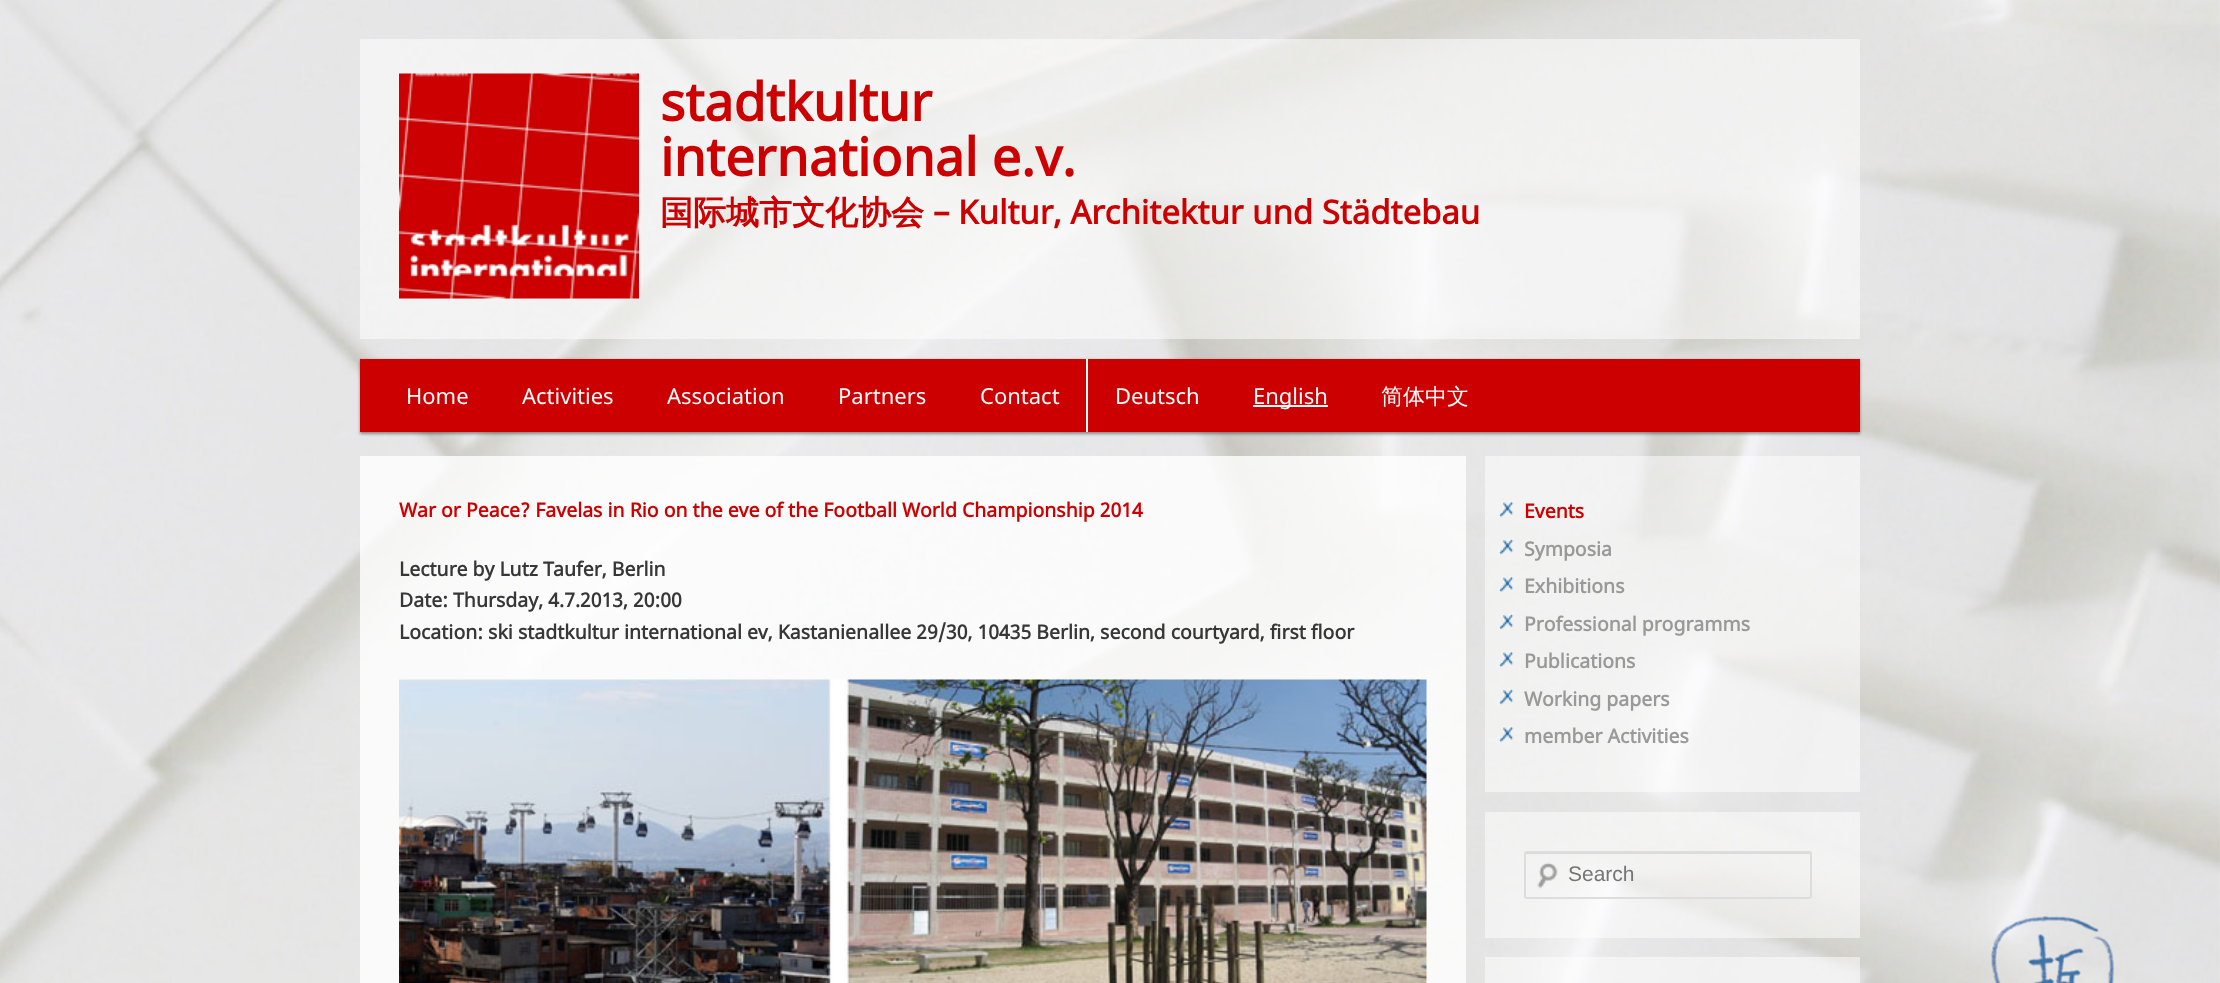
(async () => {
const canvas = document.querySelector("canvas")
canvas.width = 2220
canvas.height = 983
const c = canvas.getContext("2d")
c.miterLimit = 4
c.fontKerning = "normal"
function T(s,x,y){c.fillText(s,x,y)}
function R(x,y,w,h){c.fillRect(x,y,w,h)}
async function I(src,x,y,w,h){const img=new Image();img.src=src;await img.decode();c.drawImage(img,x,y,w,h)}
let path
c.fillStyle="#fff"
R(0,0,2220,983)
await I("1.png",0,0,2220,983)
c.fillStyle="#ffffff80"
R(360,39,1500,300)
await I("2.png",399,73,240,226)
c.font="bold 52.5px Noto Sans"
c.fillStyle="#c00"
T("stadtkultur",660,121)
T("international e.v.",660,176)
c.font="bold 33px WenQuanYi Zen Hei"
T("国际城市文化协会",660,224)
c.font="bold 33px Noto Sans"
T("– Kultur, Architektur und Städtebau",933,224)
c.fillStyle="#00000066"
c.filter="blur(1.5px)"
c.beginPath()
c.rect(360,360,1500,74)
c.fill()
c.filter="none"
c.fillStyle="#c00"
R(360,359,1500,73)
c.font="22px Noto Sans"
c.fillStyle="#fff"
T("Home",406,404)
T("Activities",522,404)
T("Association",667,404)
T("Partners",838,404)
T("Contact",980,404)
R(1086,359,2,73)
T("Deutsch",1115,404)
R(1253,405,75,2)
T("English",1253,404)
c.font="500 22px WenQuanYi Zen Hei"
T("简体中文",1381,404)
c.fillStyle="#ffffffcc"
R(360,456,1106,527)
c.font="bold 19.5px Noto Sans"
c.fillStyle="#c00"
T("War or Peace? Favelas in Rio on the eve of the Football World Championship 2014",399,517)
c.fillStyle="#373737"
T("Lecture by Lutz Taufer, Berlin",399,576)
T("Date: Thursday, 4.7.2013, 20:00",399,607)
T("Location: ski stadtkultur international ev, Kastanienallee 29/30, 10435 Berlin, second courtyard, first floor",399,639)
await I("3.png",399,679,1028,304)
c.fillStyle="#ffffff80"
R(1485,456,375,336)
await I("4.png",1498,501,16,17)
c.fillStyle="#c00"
T("Events",1524,518)
await I("5.png",1498,538,16,17)
c.fillStyle="#999"
T("Symposia",1524,556)
await I("6.png",1498,576,16,17)
T("Exhibitions",1524,593)
await I("7.png",1498,613,16,17)
T("Professional programms",1524,631)
await I("8.png",1498,651,16,17)
T("Publications",1524,668)
await I("9.png",1498,688,16,17)
T("Working papers",1524,706)
await I("10.png",1498,726,16,17)
T("member Activities",1524,743)
c.fillStyle="#ffffff80"
R(1485,812,375,126)
await I("11.png",1537,862,21,27)
c.fillStyle="#0000001a"
path = new Path2D("M1527 854h282c1 0 1 0 1 1v42c2-1 1-7 1-9v-35l-1-1h-282c-2 0-2 2-2 3c0-1 0-1 1-1z")
c.fill(path)
c.beginPath()
c.roundRect(1525,852,286,46,2)
c.strokeStyle="#ddd"
c.lineWidth=2
c.stroke()
c.font="21px Liberation Sans"
c.fillStyle="#757575"
T("Search",1568,881)
c.fillStyle="#ffffff80"
R(1485,957,375,26)
})()
